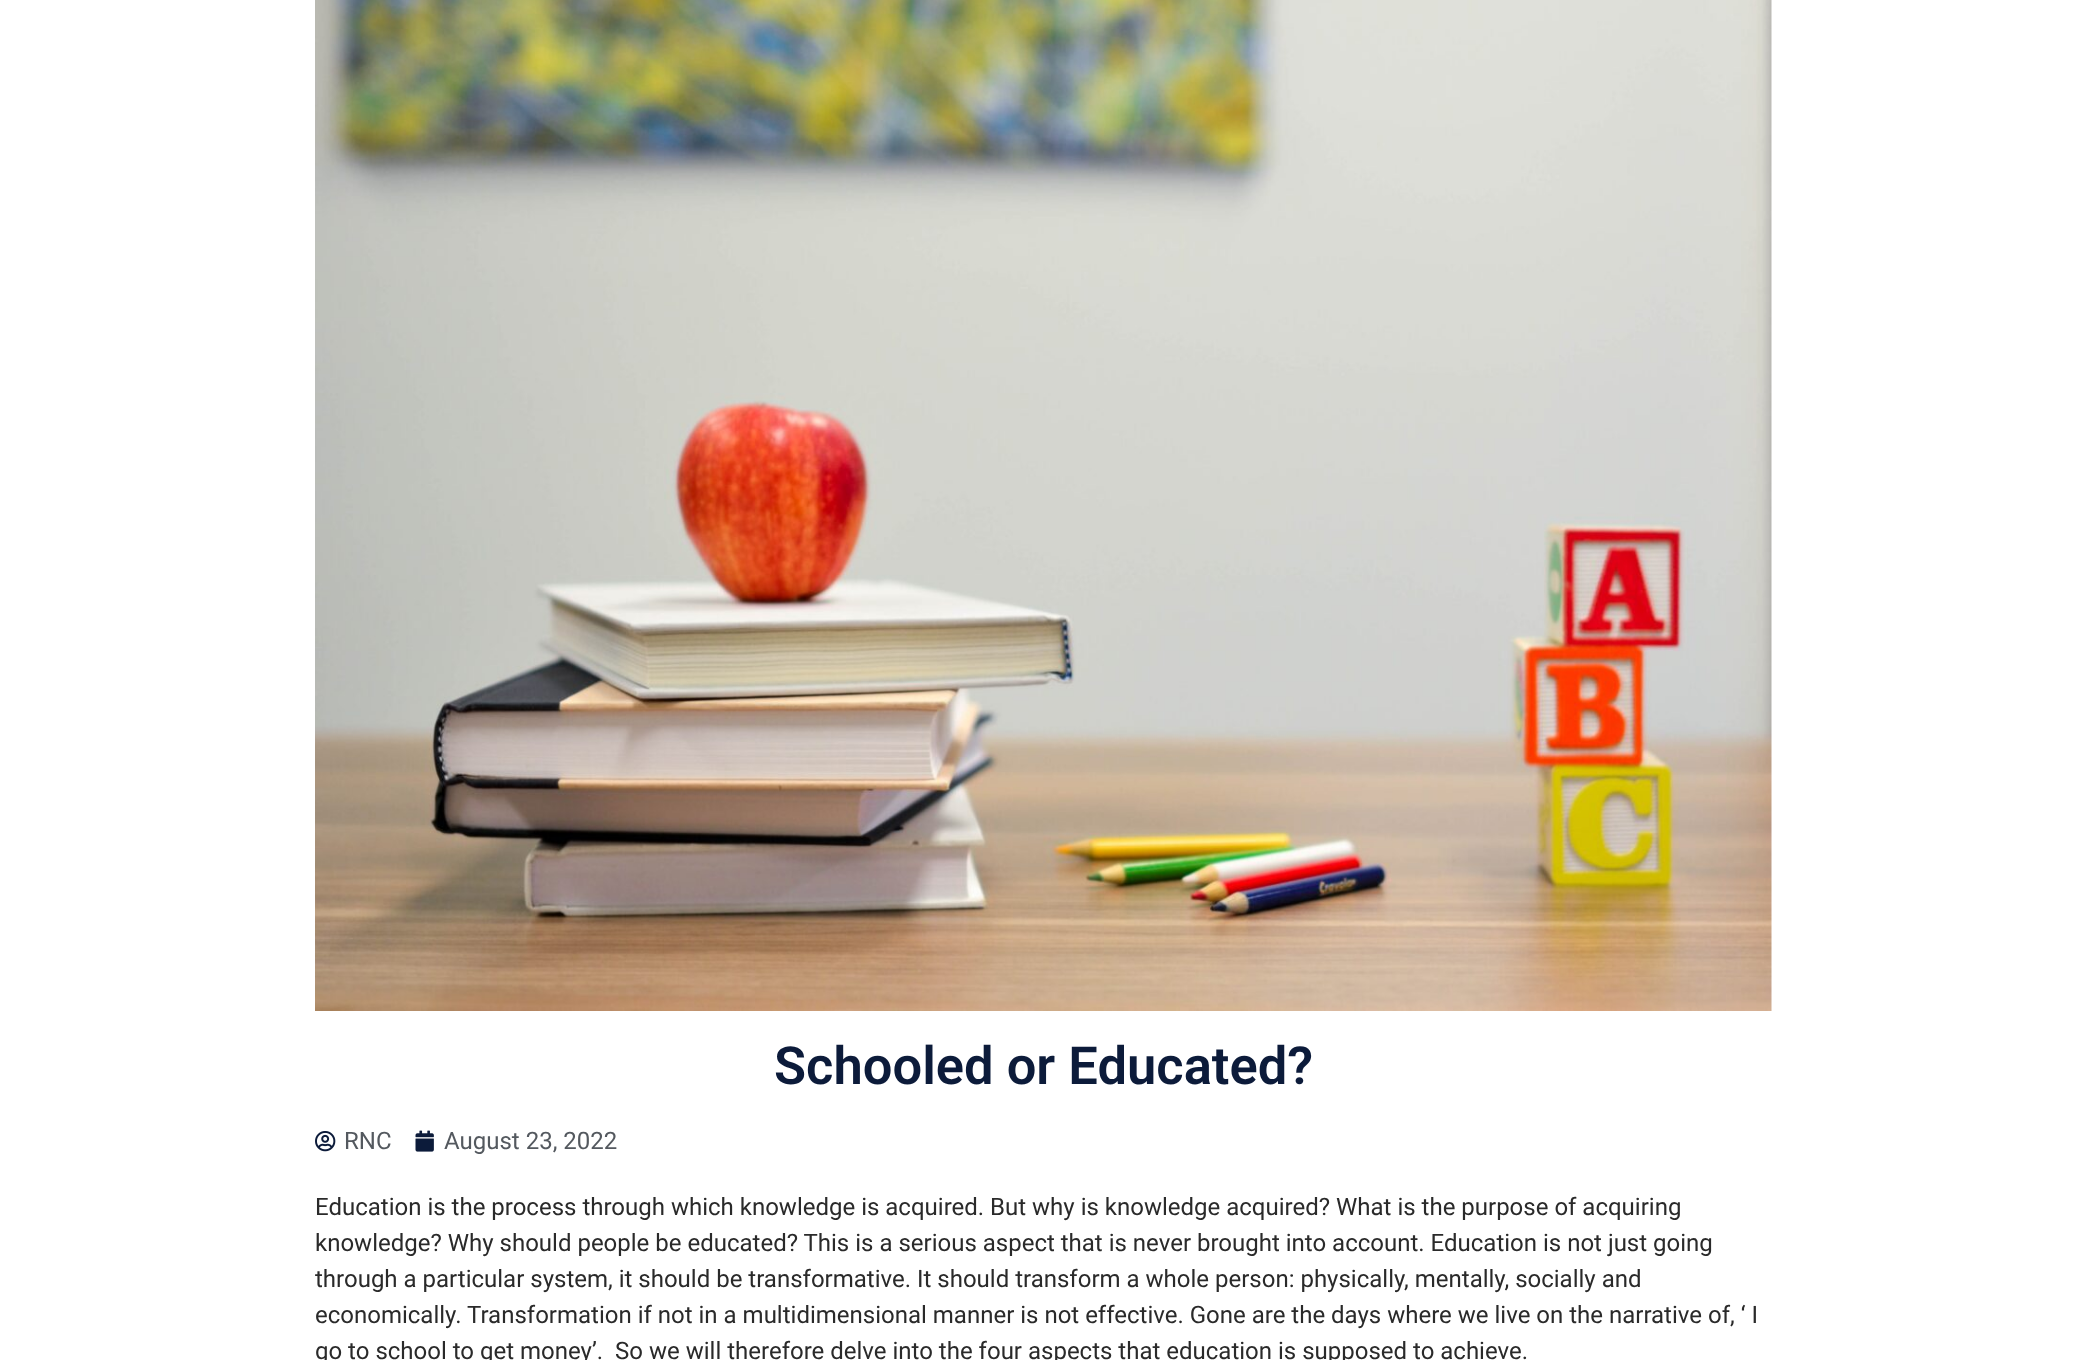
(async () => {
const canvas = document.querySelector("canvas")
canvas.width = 2086
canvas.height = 1360
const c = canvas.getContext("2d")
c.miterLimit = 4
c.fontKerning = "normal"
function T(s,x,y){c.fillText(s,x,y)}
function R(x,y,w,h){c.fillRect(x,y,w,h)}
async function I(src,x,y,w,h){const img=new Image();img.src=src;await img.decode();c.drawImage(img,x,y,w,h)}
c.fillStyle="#fff"
R(0,0,2086,1360)
await I("1.png",315,0,1457,1011)
c.font="600 52.5px Roboto"
c.fillStyle="#0c1b3a"
T("Schooled or Educated?",774,1084)
await I("2.png",315,1131,21,21)
c.font="24px Roboto"
c.fillStyle="#54595f"
T("RNC",344,1149)
await I("3.png",415,1130,19,22)
T("August 23, 2022",444,1149)
c.fillStyle="#2a2a2a"
T("Education is the process through which knowledge is acquired. But why is knowledge acquired? What is the purpose of acquiring",315,1215)
T("knowledge? Why should people be educated? This is a serious aspect that is never brought into account. Education is not just going",315,1251)
T("through a particular system, it should be transformative. It should transform a whole person: physically, mentally, socially and",315,1287)
T("economically. Transformation if not in a multidimensional manner is not effective. Gone are the days where we live on the narrative of, ‘ I",315,1323)
T("go to school to get money’.  So we will therefore delve into the four aspects that education is supposed to achieve.",315,1359)
})()
